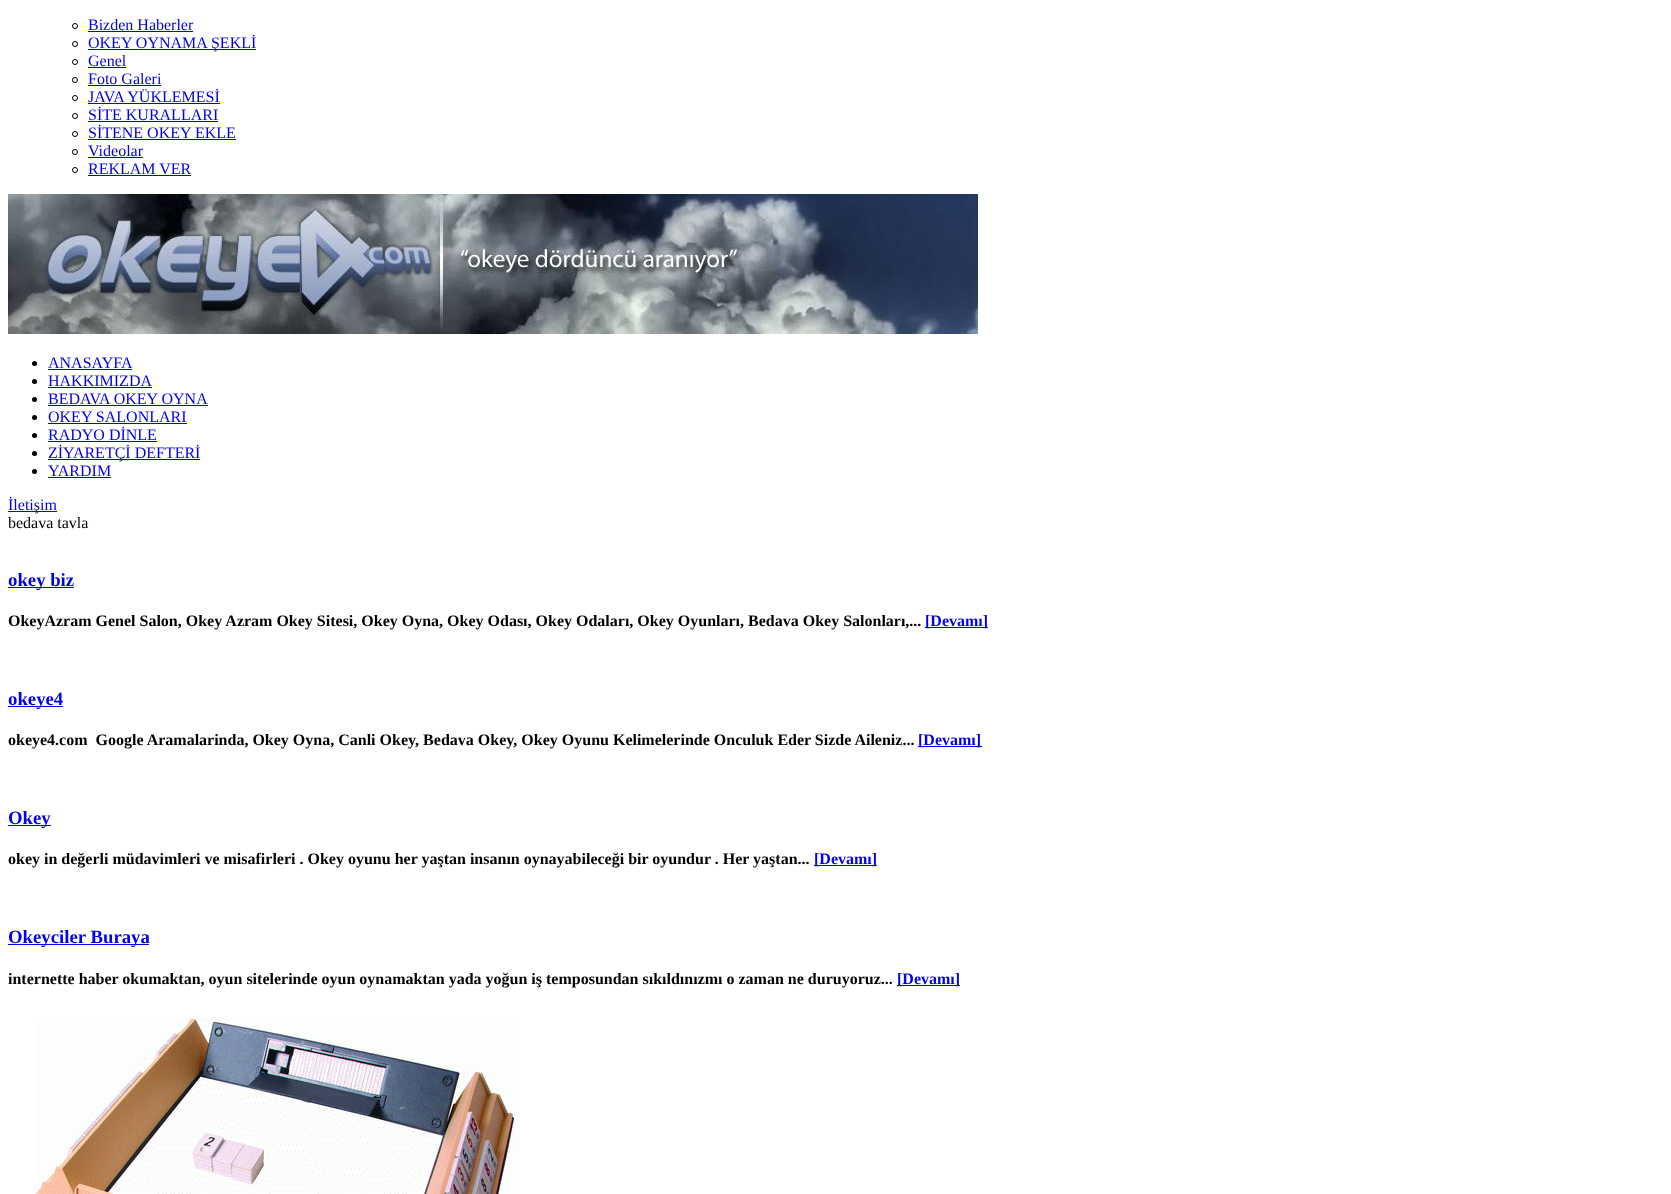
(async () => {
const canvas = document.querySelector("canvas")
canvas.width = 1671
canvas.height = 1194
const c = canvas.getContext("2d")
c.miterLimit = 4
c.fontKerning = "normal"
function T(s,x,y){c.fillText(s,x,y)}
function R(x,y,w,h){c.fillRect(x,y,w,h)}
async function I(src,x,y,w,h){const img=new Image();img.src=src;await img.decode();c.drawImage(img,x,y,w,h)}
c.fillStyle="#fff"
R(0,0,1671,1194)
c.beginPath()
c.arc(75,26,2.5,0,7)
c.strokeStyle="#000"
c.stroke()
c.font="16px Liberation Serif"
c.fillStyle="#00e"
T("Bizden Haberler",88,30)
R(88,31,105,1)
c.beginPath()
c.arc(75,44,2.5,0,7)
c.stroke()
R(88,49,168,1)
T("OKEY OYNAMA ŞEKLİ",88,48)
c.beginPath()
c.arc(75,62,2.5,0,7)
c.stroke()
T("Genel",88,66)
R(88,67,38,1)
c.beginPath()
c.arc(75,80,2.5,0,7)
c.stroke()
T("Foto Galeri",88,84)
R(88,85,73,1)
c.beginPath()
c.arc(75,98,2.5,0,7)
c.stroke()
T("JAVA YÜKLEMESİ",88,102)
R(88,103,132,1)
c.beginPath()
c.arc(75,116,2.5,0,7)
c.stroke()
T("SİTE KURALLARI",88,120)
R(88,121,130,1)
c.beginPath()
c.arc(75,134,2.5,0,7)
c.stroke()
T("SİTENE OKEY EKLE",88,138)
R(88,139,148,1)
c.beginPath()
c.arc(75,152,2.5,0,7)
c.stroke()
T("Videolar",88,156)
R(88,157,55,1)
c.beginPath()
c.arc(75,170,2.5,0,7)
c.stroke()
T("REKLAM VER",88,174)
R(88,175,103,1)
await I("1.png",8,194,970,140)
c.fillStyle="#000"
c.beginPath()
c.arc(34.5,363.5,2.5,0,7)
c.fill()
c.fillStyle="#00e"
T("ANASAYFA",48,368)
R(48,369,84,1)
c.fillStyle="#000"
c.beginPath()
c.arc(34.5,381.5,2.5,0,7)
c.fill()
c.fillStyle="#00e"
T("HAKKIMIZDA",48,386)
R(48,387,104,1)
c.fillStyle="#000"
c.beginPath()
c.arc(34.5,399.5,2.5,0,7)
c.fill()
c.fillStyle="#00e"
T("BEDAVA OKEY OYNA",48,404)
R(48,405,160,1)
c.fillStyle="#000"
c.beginPath()
c.arc(34.5,417.5,2.5,0,7)
c.fill()
c.fillStyle="#00e"
T("OKEY SALONLARI",48,422)
R(48,423,139,1)
c.fillStyle="#000"
c.beginPath()
c.arc(34.5,435.5,2.5,0,7)
c.fill()
c.fillStyle="#00e"
T("RADYO DİNLE",48,440)
R(48,441,109,1)
c.fillStyle="#000"
c.beginPath()
c.arc(34.5,453.5,2.5,0,7)
c.fill()
c.fillStyle="#00e"
R(48,459,152,1)
T("ZİYARETÇİ DEFTERİ",48,458)
c.fillStyle="#000"
c.beginPath()
c.arc(34.5,471.5,2.5,0,7)
c.fill()
c.fillStyle="#00e"
T("YARDIM",48,476)
R(48,477,63,1)
R(8,511,49,1)
T("İletişim",8,510)
c.fillStyle="#000"
T("bedava tavla",8,528)
c.fillStyle="#00e"
R(8,587,66,1)
c.font="bold 18.75px Liberation Serif"
T("okey biz",8,586)
c.font="bold 16px Liberation Serif"
c.fillStyle="#000"
T("OkeyAzram Genel Salon, Okey Azram Okey Sitesi, Okey Oyna, Okey Odası, Okey Odaları, Okey Oyunları, Bedava Okey Salonları,...",8,626)
c.fillStyle="#00e"
R(925,627,63,1)
T("[Devamı]",925,626)
R(8,706,55,1)
c.font="bold 18.75px Liberation Serif"
T("okeye4",8,705)
c.font="bold 16px Liberation Serif"
c.fillStyle="#000"
T("okeye4.com  Google Aramalarinda, Okey Oyna, Canli Okey, Bedava Okey, Okey Oyunu Kelimelerinde Onculuk Eder Sizde Aileniz...",8,745)
c.fillStyle="#00e"
R(918,746,64,1)
T("[Devamı]",918,745)
R(8,825,43,1)
c.font="bold 18.75px Liberation Serif"
T("Okey",8,824)
c.font="bold 16px Liberation Serif"
c.fillStyle="#000"
T("okey in değerli müdavimleri ve misafirleri . Okey oyunu her yaştan insanın oynayabileceği bir oyundur . Her yaştan...",8,864)
c.fillStyle="#00e"
R(814,865,63,1)
T("[Devamı]",814,864)
R(8,944,141,1)
c.font="bold 18.75px Liberation Serif"
T("Okeyciler Buraya",8,943)
c.font="bold 16px Liberation Serif"
c.fillStyle="#000"
T("internette haber okumaktan, oyun sitelerinde oyun oynamaktan yada yoğun iş temposundan sıkıldınızmı o zaman ne duruyoruz...",8,984)
c.fillStyle="#00e"
R(897,985,63,1)
T("[Devamı]",897,984)
await I("2.png",35,1018,485,176)
})()
